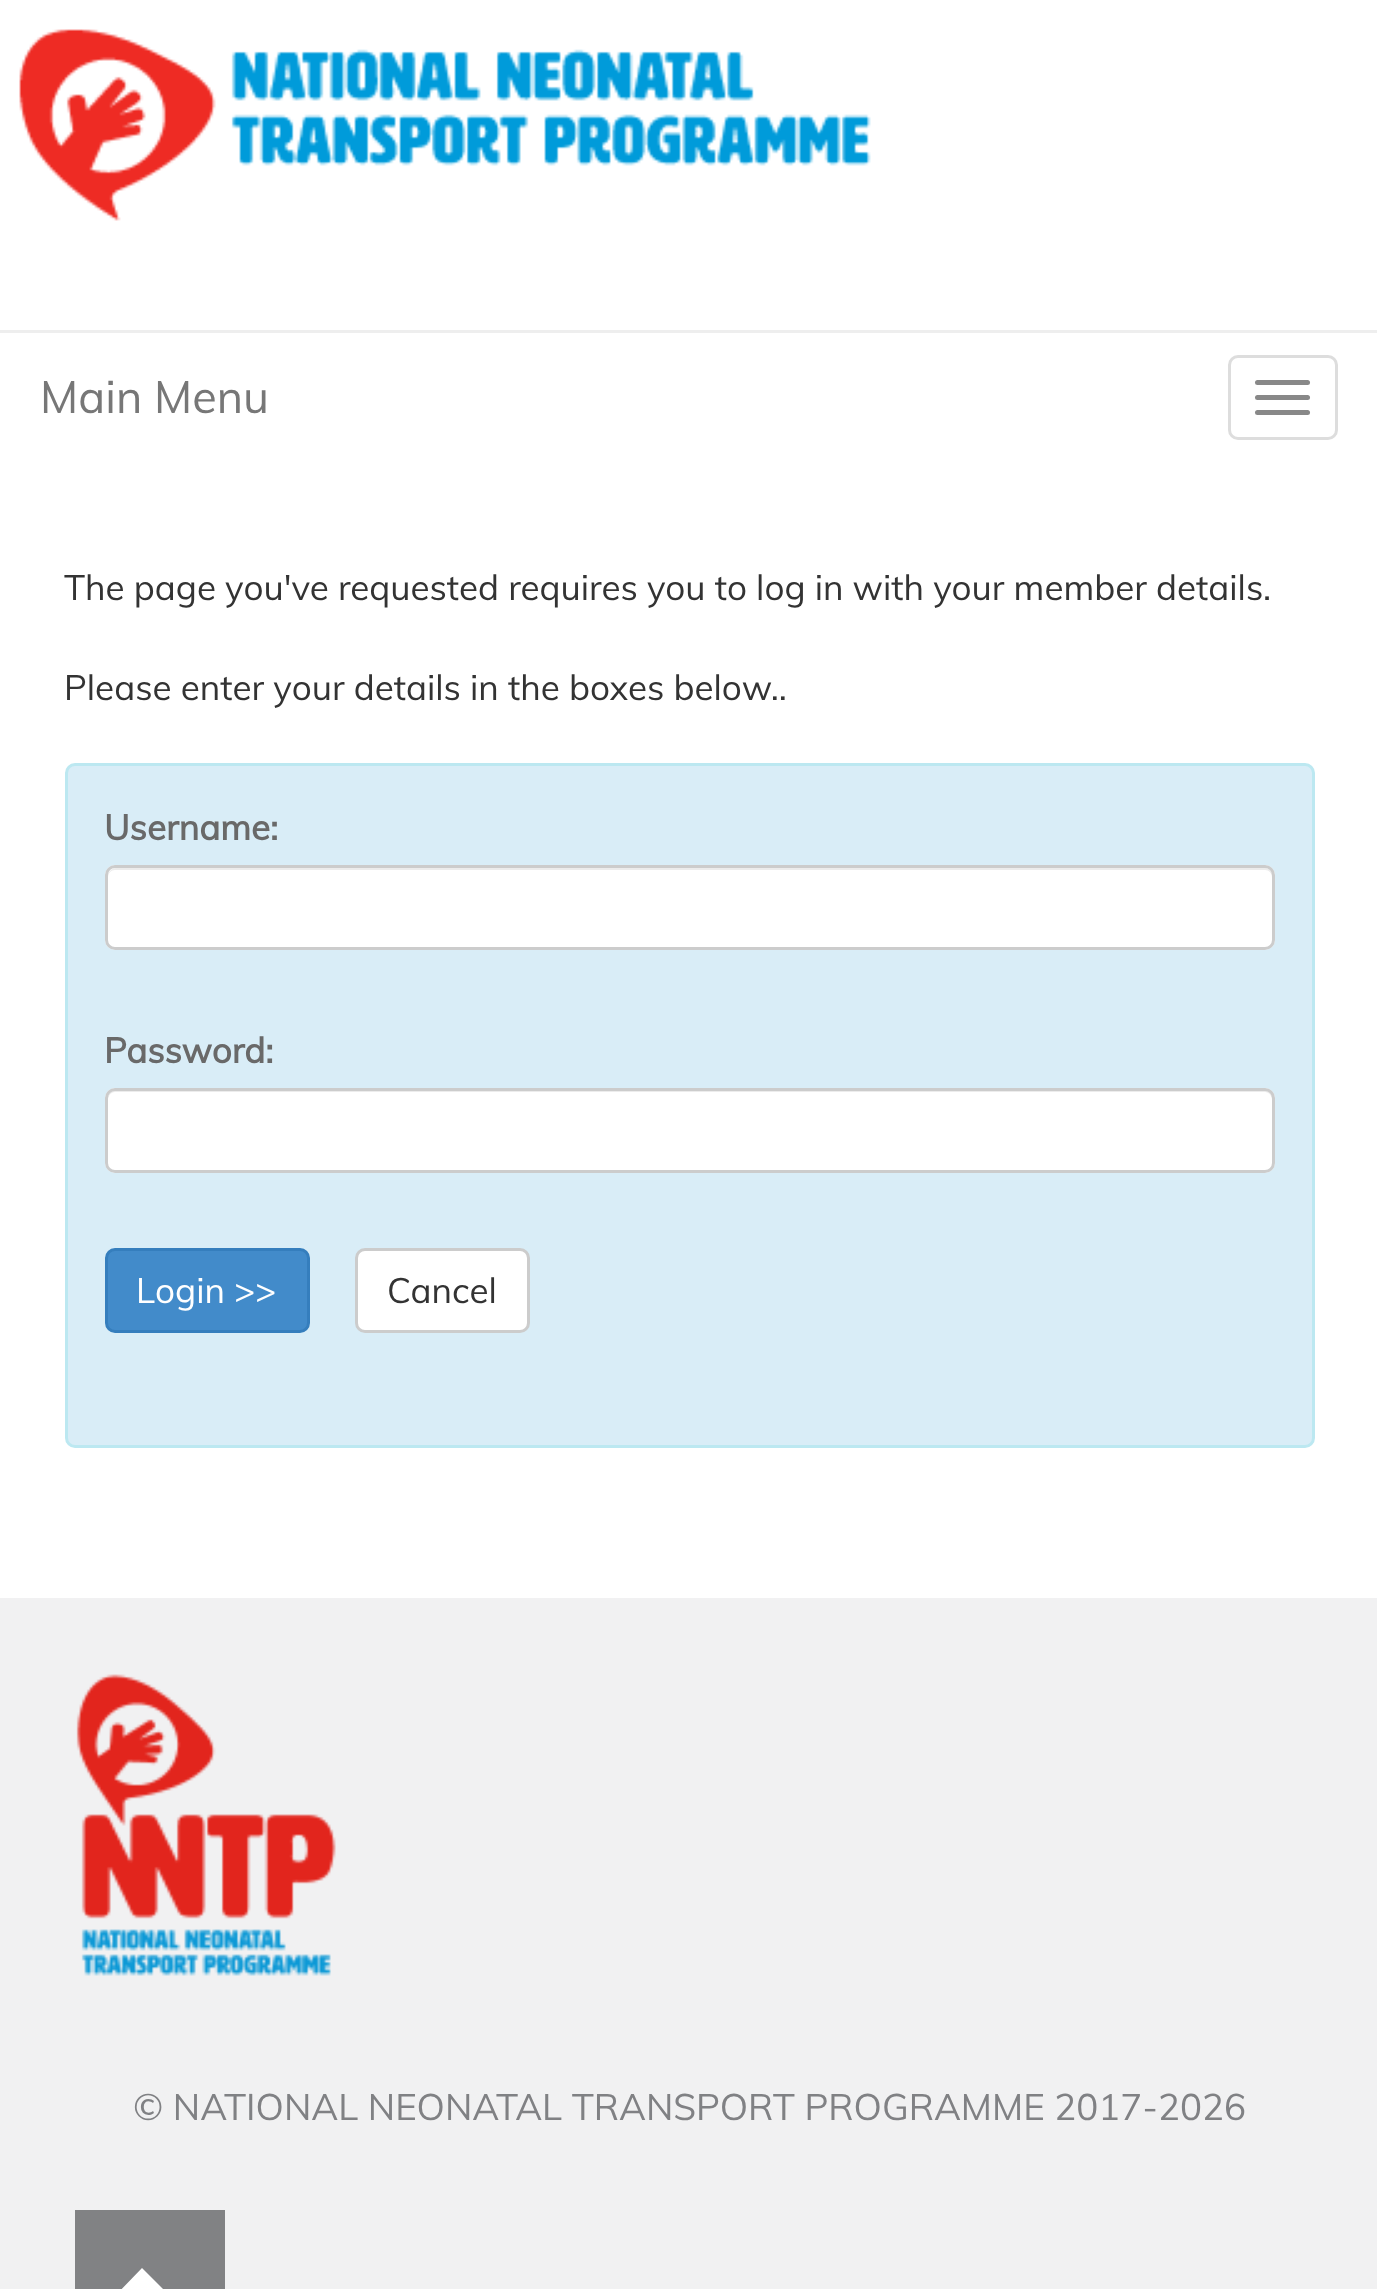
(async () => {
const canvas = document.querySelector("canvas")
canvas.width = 1377
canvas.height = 2289
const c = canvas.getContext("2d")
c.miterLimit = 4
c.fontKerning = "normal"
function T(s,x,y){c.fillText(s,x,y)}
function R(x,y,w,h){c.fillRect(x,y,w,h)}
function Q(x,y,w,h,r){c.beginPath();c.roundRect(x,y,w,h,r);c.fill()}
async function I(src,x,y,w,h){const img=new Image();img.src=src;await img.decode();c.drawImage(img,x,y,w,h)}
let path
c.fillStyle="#fff"
R(0,0,1377,2289)
await I("1.png",19,29,852,192)
c.fillStyle="#eee"
R(0,330,1377,3)
c.font="45px Muli"
c.fillStyle="#777"
T("Main Menu",40,413)
c.beginPath()
c.roundRect(1229.5,356.5,107,82,8.5)
c.strokeStyle="#ddd"
c.lineWidth=3
c.stroke()
c.fillStyle="#888"
Q(1255,380,55,5,2.5)
Q(1255,395,55,5,2.5)
Q(1255,410,55,5,2.5)
c.font="35px Muli"
c.fillStyle="#333"
T("The page you've requested requires you to log in with your member details.",64,600)
T("Please enter your details in the boxes below..",64,700)
c.fillStyle="#d9edf7"
c.beginPath()
c.roundRect(66.5,764.5,1247,682,8.5)
c.fill()
c.strokeStyle="#bce8f1"
c.stroke()
c.font="bold 35px Muli"
c.fillStyle="#696969"
T("Username:",104,840)
c.fillStyle="#fff"
Q(105,865,1170,85,10)
c.fillStyle="#ececec"
path = new Path2D("M115 870h1150c4 0 7 3 7 8v66c1-1 1-2 1-4v-64c0-4-4-8-8-8h-1149c-4 0-8 4-8 8v2c0-5 3-8 7-8z")
c.fill(path)
c.beginPath()
c.roundRect(106.5,866.5,1167,82,8.5)
c.strokeStyle="#ccc"
c.stroke()
c.fillStyle="#696969"
T("Password:",104,1063)
c.fillStyle="#fff"
Q(105,1088,1170,85,10)
c.fillStyle="#ececec"
path = new Path2D("M115 1092h1150c4 0 7 4 7 8v66c1-1 1-3 1-4v-64c0-4-4-8-8-8h-1149c-4 0-8 4-8 8v2c0-4 3-8 7-8z")
c.fill(path)
c.beginPath()
c.roundRect(106.5,1089.5,1167,82,8.5)
c.stroke()
c.fillStyle="#428bca"
c.beginPath()
c.roundRect(106.5,1249.5,202,82,8.5)
c.fill()
c.strokeStyle="#357ebd"
c.stroke()
c.font="35px Muli"
c.fillStyle="#fff"
T("Login >>",136,1303)
c.beginPath()
c.roundRect(356.5,1249.5,172,82,8.5)
c.fill()
c.strokeStyle="#ccc"
c.stroke()
c.fillStyle="#333"
T("Cancel",387,1303)
c.fillStyle="#f1f1f2"
R(0,1598,1377,691)
await I("2.png",76,1674,260,302)
c.font="36.7px Muli"
c.fillStyle="#808184"
T("© NATIONAL NEONATAL TRANSPORT PROGRAMME 2017-2026",133,2120)
c.fillStyle="#818284"
R(75,2210,150,79)
c.fillStyle="#fff"
path = new Path2D("M114 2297l11 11l17-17l18 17l11-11l-29-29z")
c.fill(path)
})()
